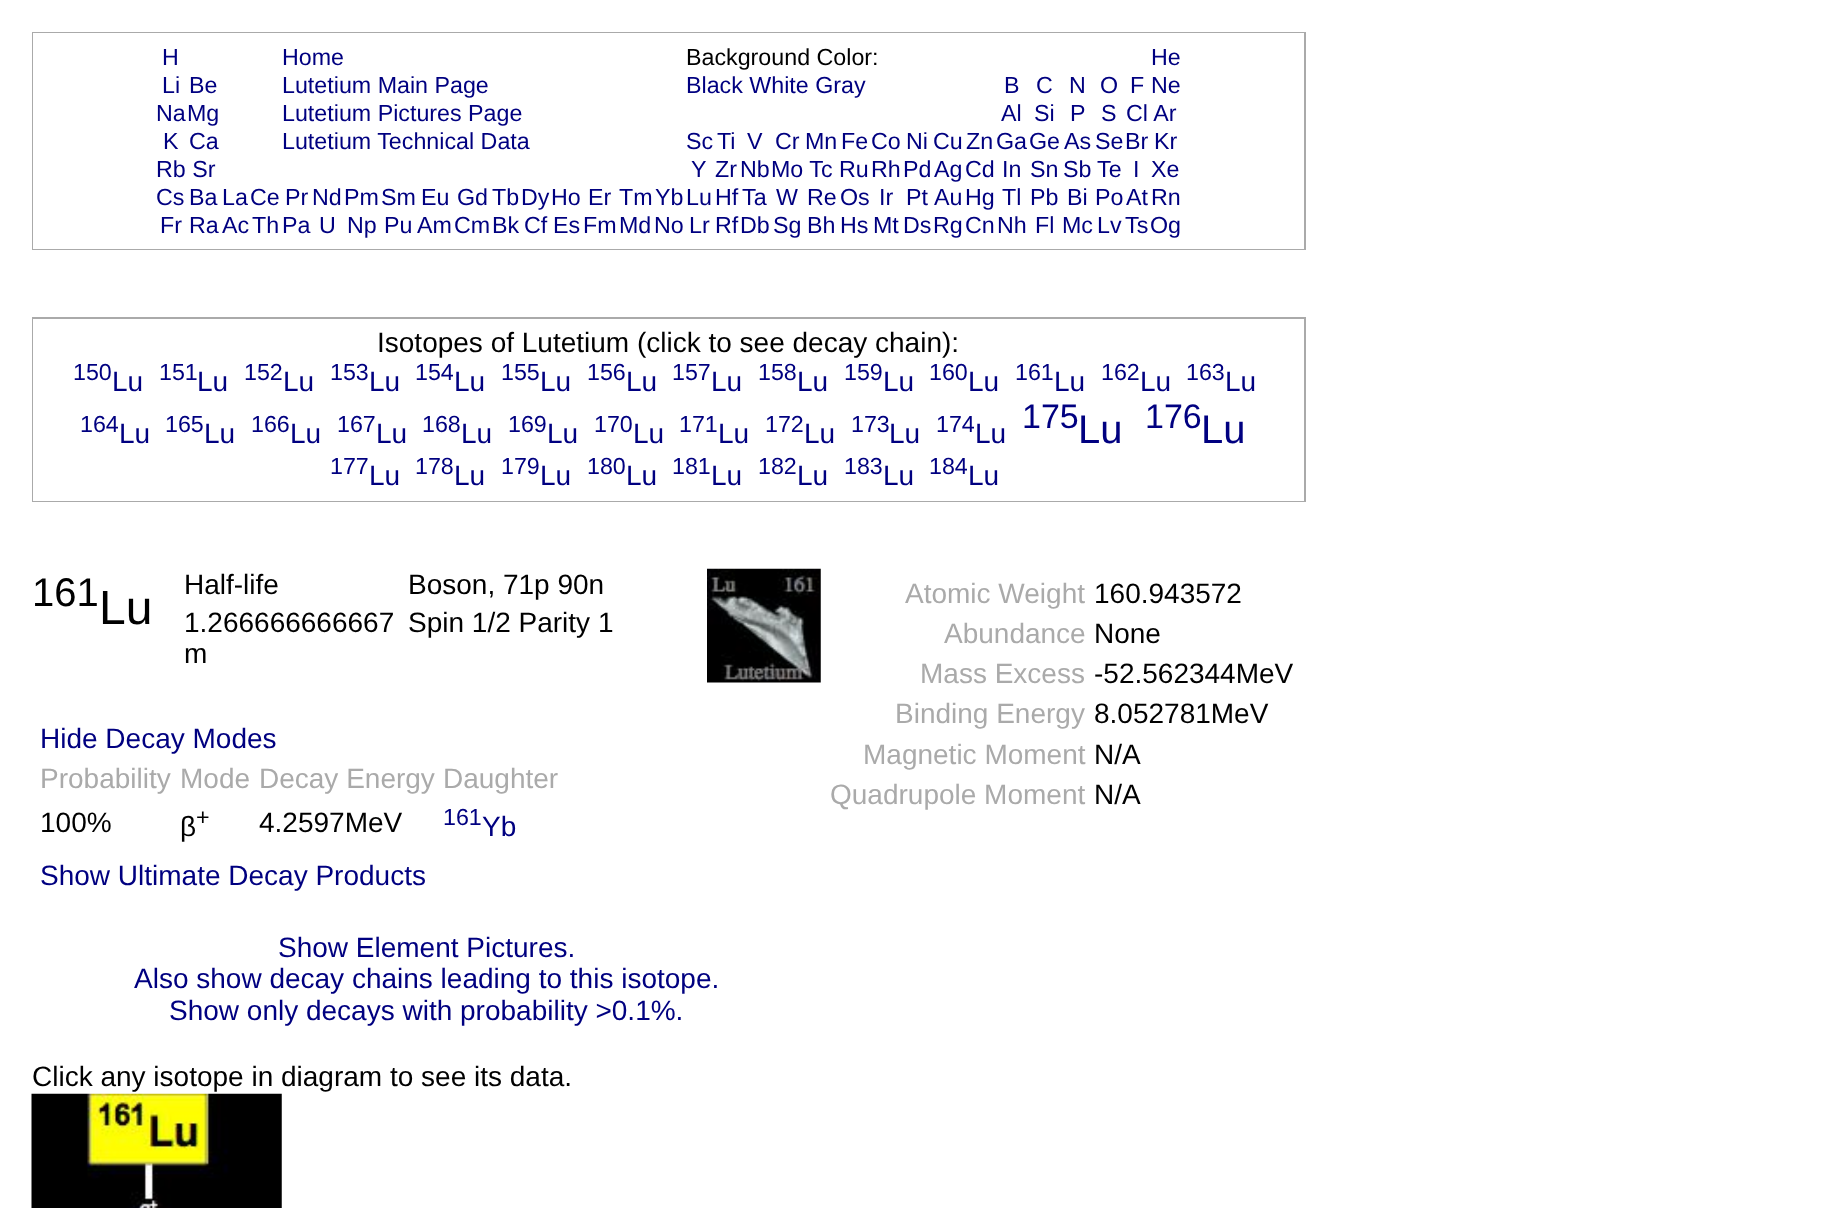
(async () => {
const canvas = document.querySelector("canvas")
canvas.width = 1825
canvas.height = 1208
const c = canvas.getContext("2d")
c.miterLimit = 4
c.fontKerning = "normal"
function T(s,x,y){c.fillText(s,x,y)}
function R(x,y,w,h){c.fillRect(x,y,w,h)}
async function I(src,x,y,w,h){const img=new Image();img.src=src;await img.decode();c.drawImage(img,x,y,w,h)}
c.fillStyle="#fff"
R(0,0,1825,1208)
c.fillStyle="#aaa"
R(32,32,1274,218)
c.fillStyle="#fff"
R(33,33,1271,216)
c.font="23.25px Liberation Sans"
c.fillStyle="#000080"
T("H",162,65)
T("Home",282,65)
c.fillStyle="#000"
T("Background Color:",686,65)
c.fillStyle="#000080"
T("He",1151,65)
T("Li",162,93)
T("Be",189,93)
T("Lutetium Main Page",282,93)
T("Black White Gray",686,93)
T("B",1004,93)
T("C",1036,93)
T("N",1069,93)
T("O",1100,93)
T("F",1130,93)
T("Ne",1151,93)
T("Na",156,121)
T("Mg",187,121)
T("Lutetium Pictures Page",282,121)
T("Al",1001,121)
T("Si",1034,121)
T("P",1070,121)
T("S",1101,121)
T("Cl Ar",1126,121)
T("K",163,149)
T("Ca",189,149)
T("Lutetium Technical Data",282,149)
T("Sc",686,149)
T("Ti",717,149)
T("V",747,149)
T("Cr",775,149)
T("Mn",805,149)
T("Fe",841,149)
T("Co",871,149)
T("Ni",906,149)
T("Cu",933,149)
T("Zn",966,149)
T("Ga",996,149)
T("Ge",1029,149)
T("As",1064,149)
T("Se",1095,149)
T("Br",1125,149)
T("Kr",1154,149)
T("Rb Sr",156,177)
T("Y",691,177)
T("Zr",715,177)
T("Nb",740,177)
T("Mo Tc Ru",771,177)
T("Rh",871,177)
T("Pd",903,177)
T("Ag",934,177)
T("Cd",965,177)
T("In",1002,177)
T("Sn",1030,177)
T("Sb",1063,177)
T("Te",1097,177)
T("I",1133,177)
T("Xe",1151,177)
T("Cs",156,205)
T("Ba",189,205)
T("La",222,205)
T("Ce",250,205)
T("Pr",285,205)
T("Nd",312,205)
T("Pm",344,205)
T("Sm",381,205)
T("Eu",421,205)
T("Gd",457,205)
T("Tb",492,205)
T("Dy",521,205)
T("Ho",551,205)
T("Er",588,205)
T("Tm",619,205)
T("Yb",655,205)
T("Lu",686,205)
T("Hf",715,205)
T("Ta",742,205)
T("W",776,205)
T("Re",807,205)
T("Os",840,205)
T("Ir",879,205)
T("Pt",906,205)
T("Au",934,205)
T("Hg",965,205)
T("Tl",1002,205)
T("Pb",1030,205)
T("Bi",1067,205)
T("Po",1095,205)
T("At",1126,205)
T("Rn",1151,205)
T("Fr",160,233)
T("Ra",189,233)
T("Ac",222,233)
T("Th",252,233)
T("Pa",282,233)
T("U",319,233)
T("Np",347,233)
T("Pu",384,233)
T("Am",417,233)
T("Cm",454,233)
T("Bk",492,233)
T("Cf",524,233)
T("Es",553,233)
T("Fm",583,233)
T("Md",619,233)
T("No",654,233)
T("Lr",689,233)
T("Rf",715,233)
T("Db",740,233)
T("Sg",773,233)
T("Bh",807,233)
T("Hs",840,233)
T("Mt",873,233)
T("Ds",903,233)
T("Rg",933,233)
T("Cn",965,233)
T("Nh",997,233)
T("Fl",1035,233)
T("Mc",1062,233)
T("Lv",1097,233)
T("Ts",1125,233)
T("Og",1150,233)
c.fillStyle="#aaa"
R(32,317,1274,185)
c.fillStyle="#fff"
R(33,319,1271,182)
c.font="28px Liberation Sans"
c.fillStyle="#000"
T("Isotopes of Lutetium (click to see decay chain):",377,352)
c.font="23.25px Liberation Sans"
c.fillStyle="#000080"
T("150",73,380)
c.font="28px Liberation Sans"
T("Lu",112,391)
c.font="23.25px Liberation Sans"
T("151",159,380)
c.font="28px Liberation Sans"
T("Lu",197,391)
c.font="23.25px Liberation Sans"
T("152",244,380)
c.font="28px Liberation Sans"
T("Lu",283,391)
c.font="23.25px Liberation Sans"
T("153",330,380)
c.font="28px Liberation Sans"
T("Lu",369,391)
c.font="23.25px Liberation Sans"
T("154",415,380)
c.font="28px Liberation Sans"
T("Lu",454,391)
c.font="23.25px Liberation Sans"
T("155",501,380)
c.font="28px Liberation Sans"
T("Lu",540,391)
c.font="23.25px Liberation Sans"
T("156",587,380)
c.font="28px Liberation Sans"
T("Lu",626,391)
c.font="23.25px Liberation Sans"
T("157",672,380)
c.font="28px Liberation Sans"
T("Lu",711,391)
c.font="23.25px Liberation Sans"
T("158",758,380)
c.font="28px Liberation Sans"
T("Lu",797,391)
c.font="23.25px Liberation Sans"
T("159",844,380)
c.font="28px Liberation Sans"
T("Lu",883,391)
c.font="23.25px Liberation Sans"
T("160",929,380)
c.font="28px Liberation Sans"
T("Lu",968,391)
c.font="23.25px Liberation Sans"
T("161",1015,380)
c.font="28px Liberation Sans"
T("Lu",1054,391)
c.font="23.25px Liberation Sans"
T("162",1101,380)
c.font="28px Liberation Sans"
T("Lu",1140,391)
c.font="23.25px Liberation Sans"
T("163",1186,380)
c.font="28px Liberation Sans"
T("Lu",1225,391)
c.font="23.25px Liberation Sans"
T("164",80,432)
c.font="28px Liberation Sans"
T("Lu",119,443)
c.font="23.25px Liberation Sans"
T("165",165,432)
c.font="28px Liberation Sans"
T("Lu",204,443)
c.font="23.25px Liberation Sans"
T("166",251,432)
c.font="28px Liberation Sans"
T("Lu",290,443)
c.font="23.25px Liberation Sans"
T("167",337,432)
c.font="28px Liberation Sans"
T("Lu",376,443)
c.font="23.25px Liberation Sans"
T("168",422,432)
c.font="28px Liberation Sans"
T("Lu",461,443)
c.font="23.25px Liberation Sans"
T("169",508,432)
c.font="28px Liberation Sans"
T("Lu",547,443)
c.font="23.25px Liberation Sans"
T("170",594,432)
c.font="28px Liberation Sans"
T("Lu",633,443)
c.font="23.25px Liberation Sans"
T("171",679,432)
c.font="28px Liberation Sans"
T("Lu",718,443)
c.font="23.25px Liberation Sans"
T("172",765,432)
c.font="28px Liberation Sans"
T("Lu",804,443)
c.font="23.25px Liberation Sans"
T("173",851,432)
c.font="28px Liberation Sans"
T("Lu",889,443)
c.font="23.25px Liberation Sans"
T("174",936,432)
c.font="28px Liberation Sans"
T("Lu",975,443)
c.font="34px Liberation Sans"
T("175",1022,428)
c.font="40px Liberation Sans"
T("Lu",1078,443)
c.font="34px Liberation Sans"
T("176",1145,428)
c.font="40px Liberation Sans"
T("Lu",1201,443)
c.font="23.25px Liberation Sans"
T("177",330,474)
c.font="28px Liberation Sans"
T("Lu",369,485)
c.font="23.25px Liberation Sans"
T("178",415,474)
c.font="28px Liberation Sans"
T("Lu",454,485)
c.font="23.25px Liberation Sans"
T("179",501,474)
c.font="28px Liberation Sans"
T("Lu",540,485)
c.font="23.25px Liberation Sans"
T("180",587,474)
c.font="28px Liberation Sans"
T("Lu",626,485)
c.font="23.25px Liberation Sans"
T("181",672,474)
c.font="28px Liberation Sans"
T("Lu",711,485)
c.font="23.25px Liberation Sans"
T("182",758,474)
c.font="28px Liberation Sans"
T("Lu",797,485)
c.font="23.25px Liberation Sans"
T("183",844,474)
c.font="28px Liberation Sans"
T("Lu",883,485)
c.font="23.25px Liberation Sans"
T("184",929,474)
c.font="28px Liberation Sans"
T("Lu",968,485)
c.font="40px Liberation Sans"
c.fillStyle="#000"
T("161",32,606)
c.font="48px Liberation Sans"
T("Lu",99,624)
c.font="28px Liberation Sans"
T("Half-life",184,594)
T("Boson, 71p 90n",408,594)
await I("1.png",707,568,114,115)
T("1.266666666667",184,632)
T("m",184,663)
T("Spin 1/2 Parity 1",408,632)
c.fillStyle="#000080"
T("Hide Decay Modes",40,748)
c.fillStyle="#aaa"
T("Probability",40,788)
T("Mode",180,788)
T("Decay Energy",259,788)
T("Daughter",443,788)
c.fillStyle="#000"
T("100%",40,832)
T("β",180,836)
c.font="23.25px Liberation Sans"
T("+",196,825)
c.font="28px Liberation Sans"
T("4.2597MeV",259,832)
c.font="23.25px Liberation Sans"
c.fillStyle="#000080"
T("161",443,825)
c.font="28px Liberation Sans"
T("Yb",482,836)
T("Show Ultimate Decay Products",40,885)
c.fillStyle="#aaa"
T("Atomic Weight",905,603)
c.fillStyle="#000"
T("160.943572",1094,603)
c.fillStyle="#aaa"
T("Abundance",944,643)
c.fillStyle="#000"
T("None",1094,643)
c.fillStyle="#aaa"
T("Mass Excess",920,683)
c.fillStyle="#000"
T("-52.562344MeV",1094,683)
c.fillStyle="#aaa"
T("Binding Energy",895,723)
c.fillStyle="#000"
T("8.052781MeV",1094,723)
c.fillStyle="#aaa"
T("Magnetic Moment",863,764)
c.fillStyle="#000"
T("N/A",1094,764)
c.fillStyle="#aaa"
T("Quadrupole Moment",830,804)
c.fillStyle="#000"
T("N/A",1094,804)
c.fillStyle="#000080"
T("Show Element Pictures.",278,957)
T("Also show decay chains leading to this isotope.",134,988)
T("Show only decays with probability >0.1%.",169,1020)
c.fillStyle="#000"
T("Click any isotope in diagram to see its data.",32,1086)
await I("2.png",31,1093,251,115)
})()
